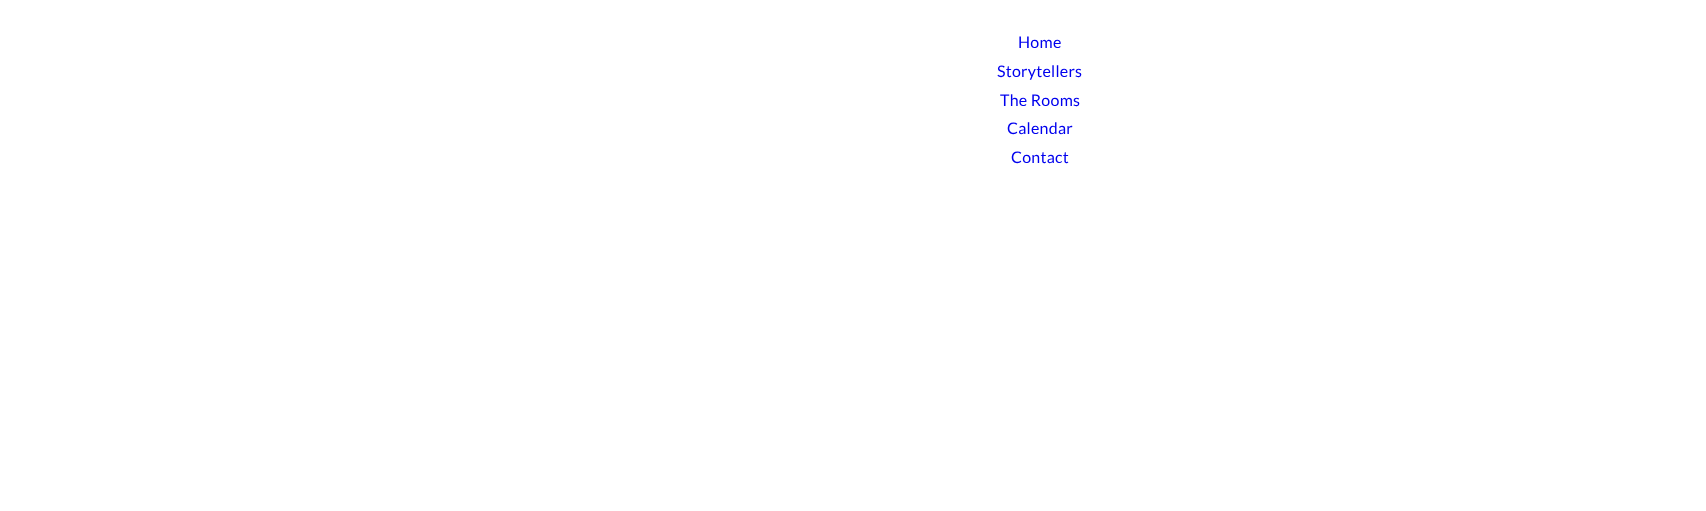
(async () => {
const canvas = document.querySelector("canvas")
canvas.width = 1706
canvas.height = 511
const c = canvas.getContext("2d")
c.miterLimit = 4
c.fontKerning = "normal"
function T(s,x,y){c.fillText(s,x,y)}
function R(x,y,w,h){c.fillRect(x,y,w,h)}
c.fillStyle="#fff"
R(0,0,1706,511)
c.letterSpacing="0.25px"
c.font="16px Lato"
c.fillStyle="#00e"
T("Home",1018,48)
T("Storytellers",997,77)
T("The Rooms",1000,106)
T("Calendar",1007,134)
T("Contact",1011,163)
})()
